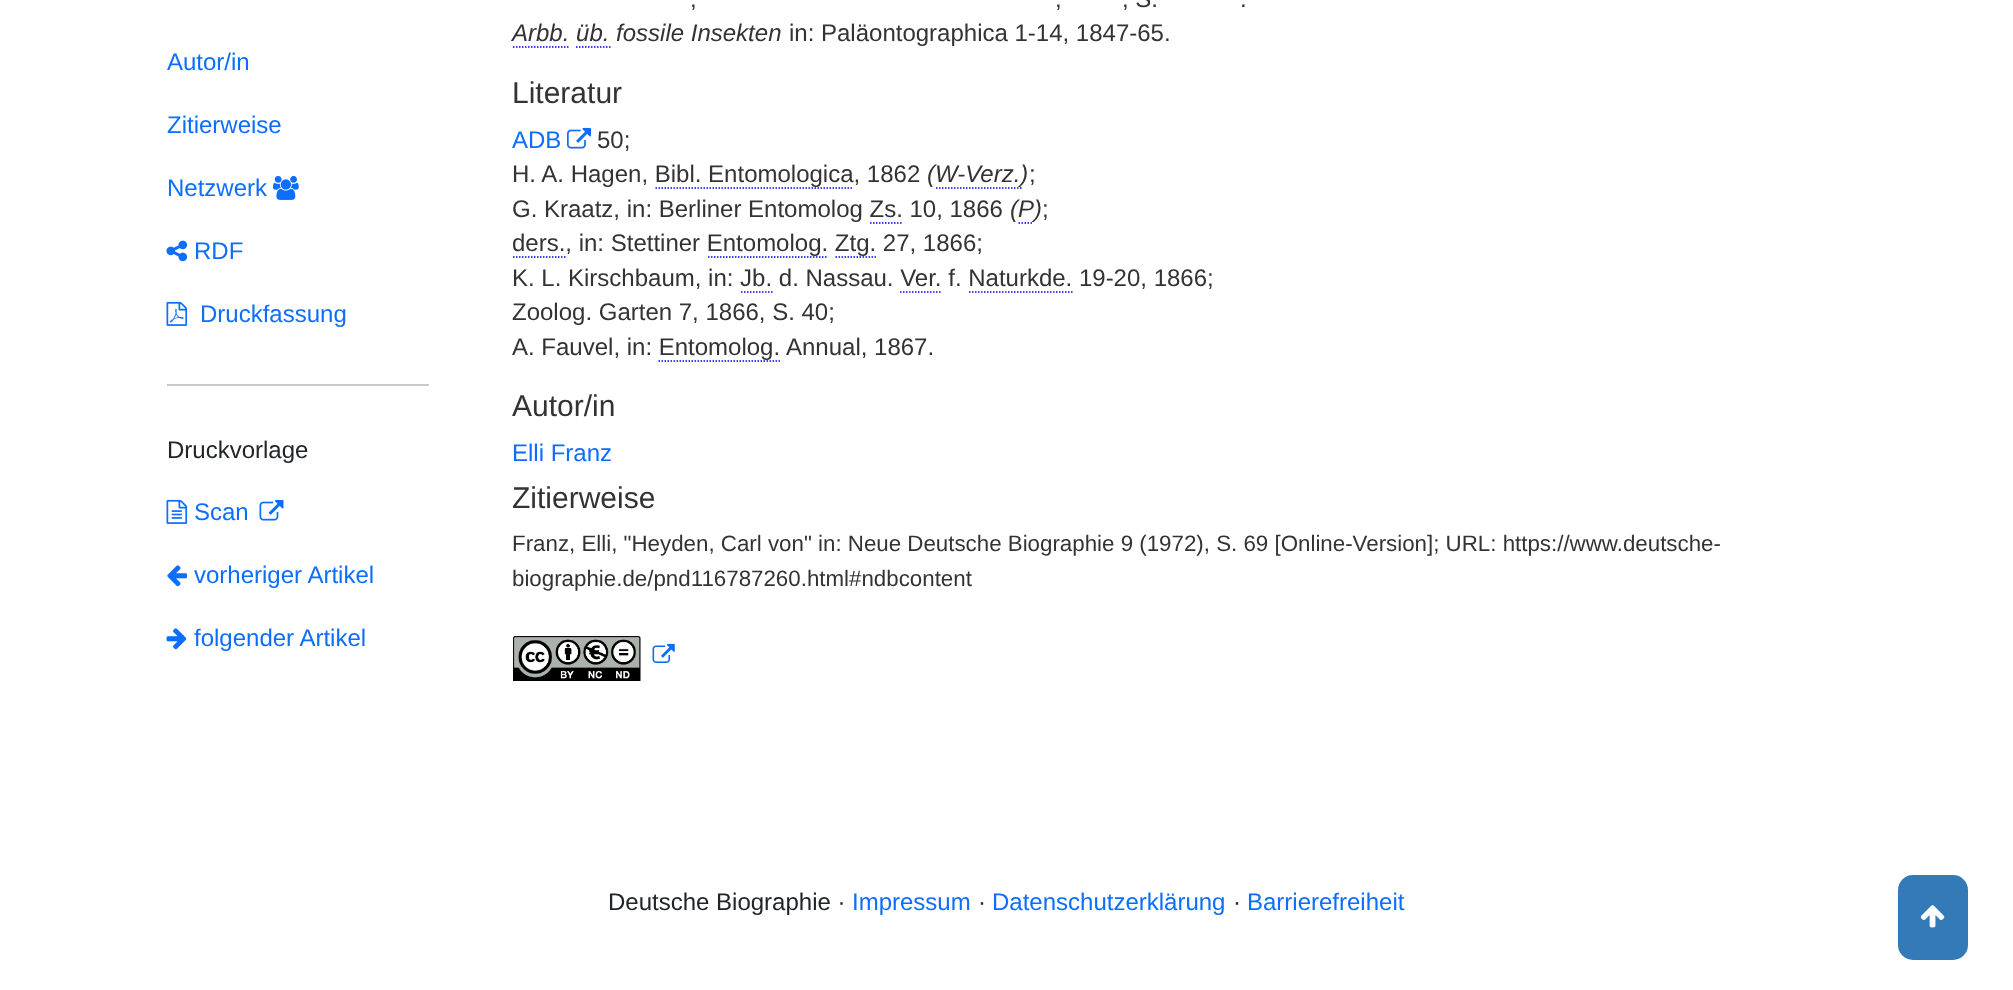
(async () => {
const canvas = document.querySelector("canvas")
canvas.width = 2013
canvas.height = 990
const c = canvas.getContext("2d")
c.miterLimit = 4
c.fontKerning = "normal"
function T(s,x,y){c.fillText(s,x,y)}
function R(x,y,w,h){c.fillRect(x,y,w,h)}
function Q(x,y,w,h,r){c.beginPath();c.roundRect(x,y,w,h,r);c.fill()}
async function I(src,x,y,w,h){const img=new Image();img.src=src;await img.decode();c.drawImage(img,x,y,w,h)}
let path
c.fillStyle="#fff"
R(0,0,2013,990)
c.font="24px Liberation Sans"
c.fillStyle="#0d6efd"
T("Autor/in",167,70)
T("Zitierweise",167,133)
T("Netzwerk",167,196)
await I("1.png",273,175,26,25)
await I("2.png",166,240,22,22)
T("RDF",194,259)
await I("3.png",166,301,22,25)
T("Druckfassung",200,322)
c.fillStyle="#c8c9ca"
R(167,384,262,2)
c.fillStyle="#212529"
T("Druckvorlage",167,458)
await I("4.png",166,499,22,25)
c.fillStyle="#0d6efd"
T("Scan",194,520)
await I("5.png",259,499,25,22)
await I("6.png",167,565,21,22)
T("vorheriger Artikel",194,583)
await I("7.png",166,628,21,22)
T("folgender Artikel",194,646)
c.fillStyle="#333"
T(",",690,7)
T(",",1055,7)
T(", S.",1122,7)
T(".",1240,7)
c.font="italic 24px Liberation Sans"
T("Arbb. üb. fossile Insekten",512,41)
path = new Path2D("M513 47h57")
c.strokeStyle="#00f"
c.lineWidth=1.5
c.setLineDash([1.5,1.5])
c.stroke(path)
path = new Path2D("M576 47h34.5")
c.stroke(path)
c.font="24px Liberation Sans"
T("in: Paläontographica 1-14, 1847-65.",789,41)
c.font="30px Liberation Sans"
T("Literatur",512,103)
c.font="24px Liberation Sans"
c.fillStyle="#0d6efd"
T("ADB",512,148)
await I("8.png",567,127,24,22)
c.fillStyle="#333"
T("50;",597,148)
T("H. A. Hagen, Bibl. Entomologica, 1862",512,182)
c.font="italic 24px Liberation Sans"
T("(W-Verz.)",927,182)
path = new Path2D("M936 188h85.5")
c.stroke(path)
c.font="24px Liberation Sans"
T(";",1029,182)
path = new Path2D("M655.5 188h198")
c.stroke(path)
T("G. Kraatz, in: Berliner Entomolog Zs. 10, 1866",512,217)
c.font="italic 24px Liberation Sans"
T("(P)",1010,217)
path = new Path2D("M1018.5 223h15")
c.stroke(path)
c.font="24px Liberation Sans"
T(";",1042,217)
path = new Path2D("M870 223h33")
c.stroke(path)
T("ders., in: Stettiner Entomolog. Ztg. 27, 1866;",512,251)
path = new Path2D("M513 257h52.5")
c.stroke(path)
path = new Path2D("M708 257h120")
c.stroke(path)
path = new Path2D("M835.5 257h40.5")
c.stroke(path)
T("K. L. Kirschbaum, in: Jb. d. Nassau. Ver. f. Naturkde. 19-20, 1866;",512,286)
path = new Path2D("M741 292h31.5")
c.stroke(path)
path = new Path2D("M900 292h42")
c.stroke(path)
path = new Path2D("M969 292h103.5")
c.stroke(path)
T("Zoolog. Garten 7, 1866, S. 40;",512,320)
T("A. Fauvel, in: Entomolog.",512,355)
T("Annual, 1867.",786,355)
path = new Path2D("M658.5 361h121.5")
c.stroke(path)
c.font="30px Liberation Sans"
T("Autor/in",512,416)
c.font="24px Liberation Sans"
c.fillStyle="#0d6efd"
T("Elli Franz",512,461)
c.font="30px Liberation Sans"
c.fillStyle="#333"
T("Zitierweise",512,508)
c.font="22.32px Liberation Sans"
T("Franz, Elli, \"Heyden, Carl von\" in: Neue Deutsche Biographie 9 (1972), S. 69 [Online-Version]; URL: https://www.deutsche-",512,551)
T("biographie.de/pnd116787260.html#ndbcontent",512,586)
await I("9.png",513,636,128,45)
await I("10.png",652,643,23,20)
c.fillStyle="#337ab7"
Q(1898,875,70,85,15)
await I("11.png",1920,905,25,23)
c.font="24px Liberation Sans"
c.fillStyle="#212529"
T("Deutsche Biographie ·",608,910)
c.fillStyle="#0d6efd"
T("Impressum",852,910)
c.fillStyle="#212529"
T("·",978,910)
c.fillStyle="#0d6efd"
T("Datenschutzerklärung",992,910)
c.fillStyle="#212529"
T("·",1233,910)
c.fillStyle="#0d6efd"
T("Barrierefreiheit",1247,910)
})()
